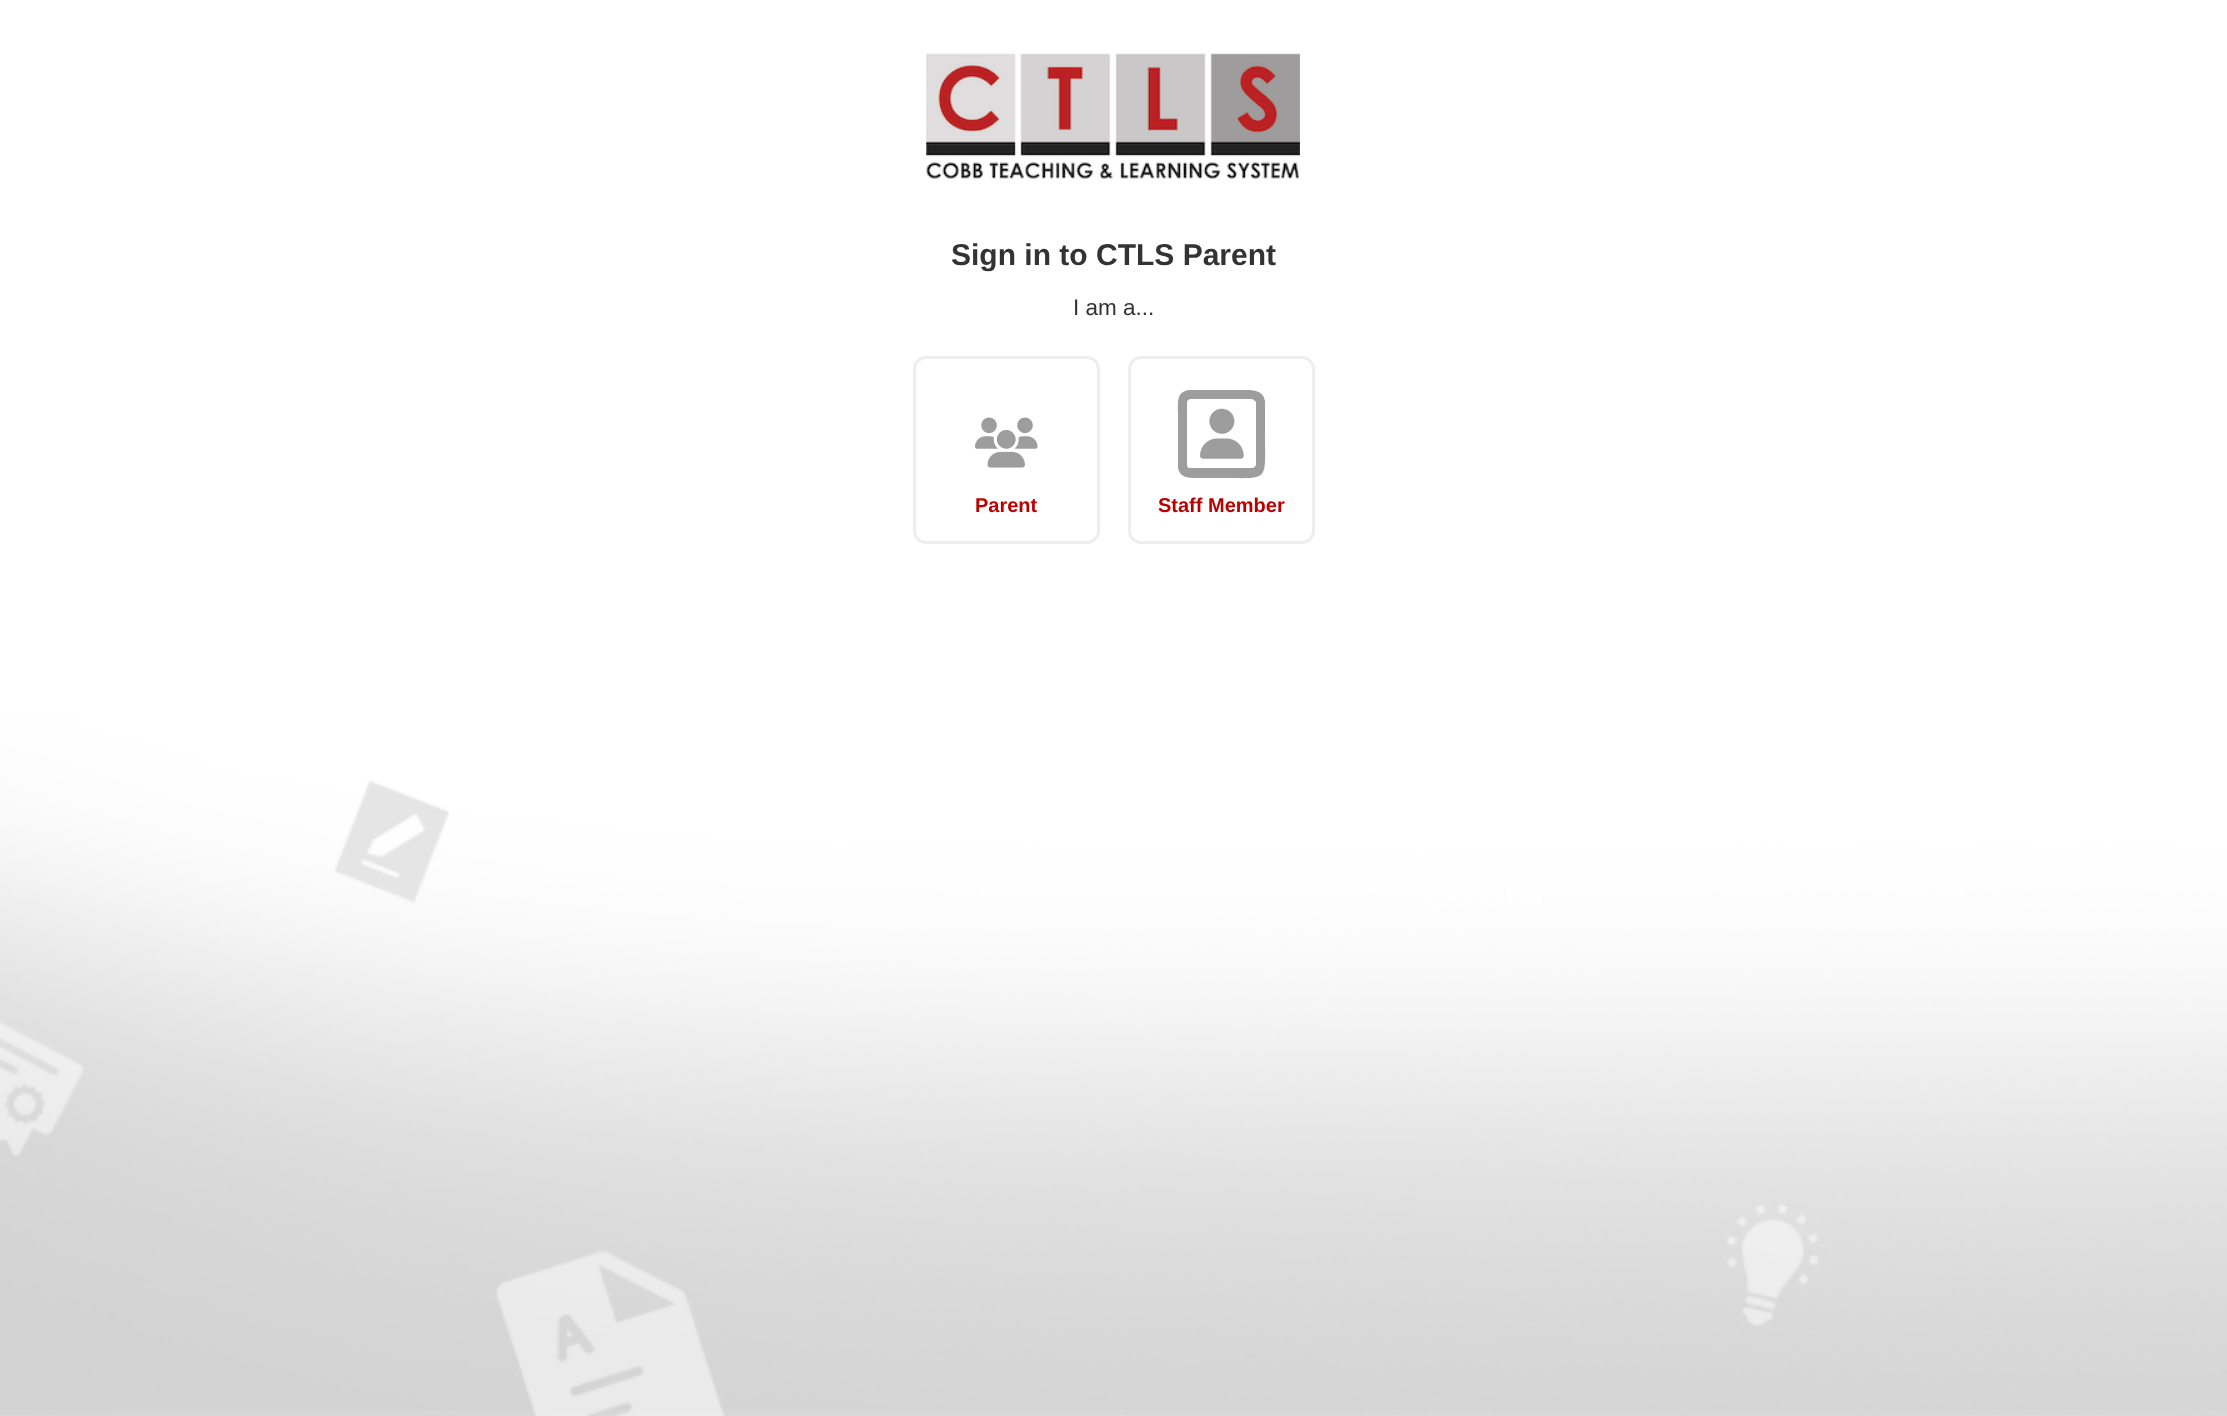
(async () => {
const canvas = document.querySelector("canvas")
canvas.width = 2227
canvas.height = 1416
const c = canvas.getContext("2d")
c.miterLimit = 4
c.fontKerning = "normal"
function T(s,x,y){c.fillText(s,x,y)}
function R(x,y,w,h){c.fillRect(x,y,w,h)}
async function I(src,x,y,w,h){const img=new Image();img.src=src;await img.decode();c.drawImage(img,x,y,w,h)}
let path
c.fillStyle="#fff"
R(0,0,2227,1416)
await I("1.png",0,0,2227,1416)
await I("2.png",926,53,374,126)
c.font="bold 30px Liberation Sans"
c.fillStyle="#333"
T("Sign in to CTLS Parent",951,265)
c.font="22.5px Liberation Sans"
T("I am a...",1073,315)
c.beginPath()
c.roundRect(914.5,357.5,184,185,11.5)
c.strokeStyle="#eee"
c.lineWidth=3
c.stroke()
await I("3.png",975,417,63,51)
c.font="bold 20px Liberation Sans"
c.fillStyle="#b00"
T("Parent",975,512)
c.beginPath()
c.roundRect(1129.5,357.5,184,185,11.5)
c.stroke()
await I("4.png",1200,408,44,51)
c.fillStyle="#9d9d9e"
path = new Path2D("M1252 399c2 1 3 2 4 3v63c-1 2-2 3-4 3h-62c-2 0-3-1-3-3v-63c0-1 1-2 3-3zm-62-9c-14 1-12 13-12 23v55c2 11 13 10 22 10h21c49 0 44 5 44-44v-33c-2-12-14-11-23-11z")
c.fill(path)
c.fillStyle="#b00"
T("Staff Member",1158,512)
})()
